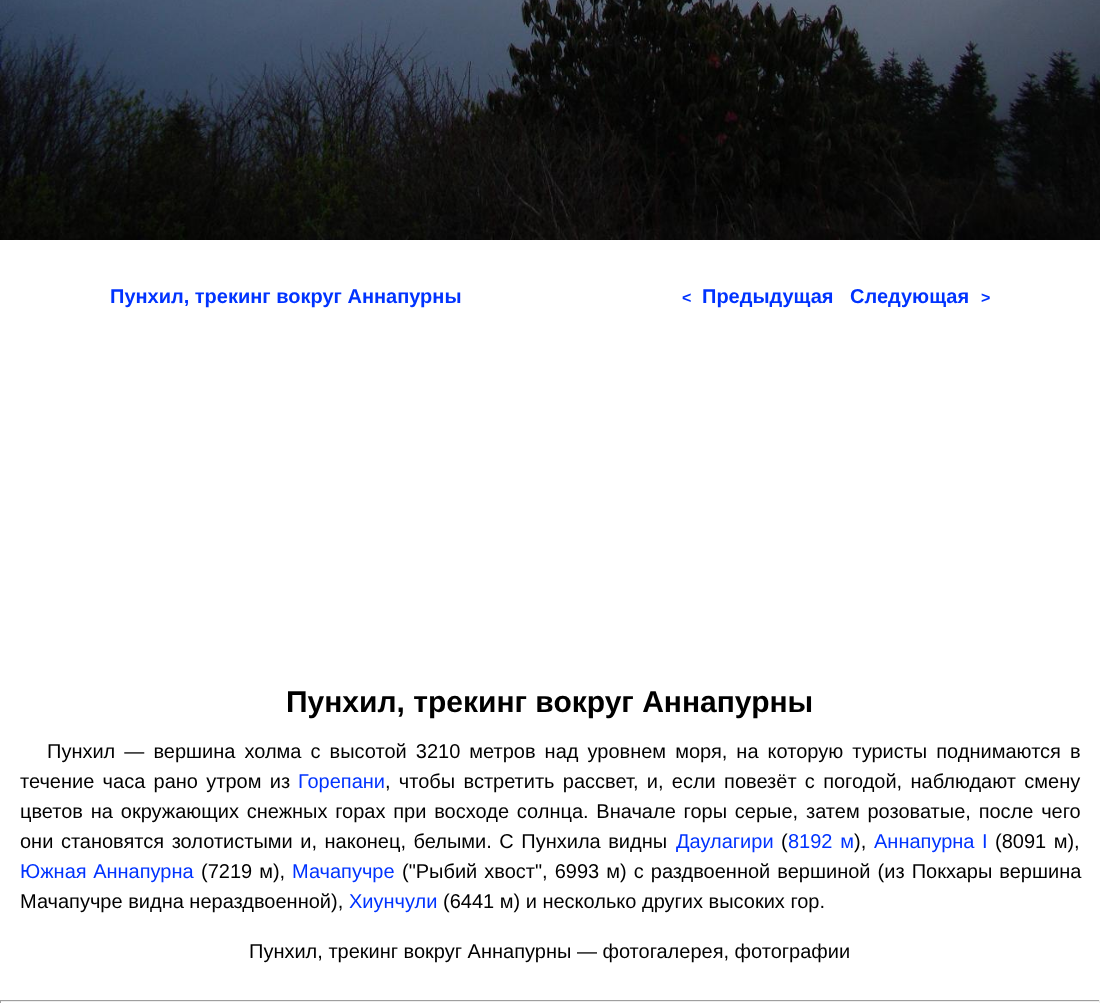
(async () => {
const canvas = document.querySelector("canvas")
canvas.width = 1100
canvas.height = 1007
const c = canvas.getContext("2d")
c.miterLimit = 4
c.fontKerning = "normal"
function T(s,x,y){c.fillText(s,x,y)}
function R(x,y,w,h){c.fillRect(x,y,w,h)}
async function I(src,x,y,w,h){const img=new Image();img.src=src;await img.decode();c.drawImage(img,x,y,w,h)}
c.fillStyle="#fff"
R(0,0,1100,1007)
await I("1.png",0,0,1100,240)
c.font="bold 20px Liberation Sans"
c.fillStyle="#03f"
T("Пунхил, трекинг вокруг Аннапурны",110,303)
c.font="bold 16px Liberation Sans"
T("<",682,303)
c.font="bold 20px Liberation Sans"
T("Предыдущая",702,303)
T("Следующая",850,303)
c.font="bold 16px Liberation Sans"
T(">",981,303)
c.font="bold 30px Liberation Sans"
c.fillStyle="#000"
T("Пунхил, трекинг вокруг Аннапурны",286,712)
c.wordSpacing="3.5px"
c.font="20px Liberation Sans"
T("Пунхил — вершина холма с высотой 3210 метров над уровнем моря, на которую туристы поднимаются в",47,758)
c.wordSpacing="2.75px"
T("течение часа рано утром из",20,788)
c.wordSpacing="0px"
c.fillStyle="#03f"
T("Горепани",298,788)
c.wordSpacing="2.75px"
c.fillStyle="#000"
T(", чтобы встретить рассвет, и, если повезёт с погодой, наблюдают смену",385,788)
c.wordSpacing="2.25px"
T("цветов на окружающих снежных горах при восходе солнца. Вначале горы серые, затем розоватые, после чего",20,818)
c.wordSpacing="2px"
T("они становятся золотистыми и, наконец, белыми. С Пунхила видны",20,848)
c.wordSpacing="0px"
c.fillStyle="#03f"
T("Даулагири",676,848)
c.fillStyle="#000"
T("(",781,848)
c.wordSpacing="2.25px"
c.fillStyle="#03f"
T("8192 м",788,848)
c.wordSpacing="0px"
c.fillStyle="#000"
T("),",854,848)
c.wordSpacing="2px"
c.fillStyle="#03f"
T("Аннапурна I",874,848)
c.fillStyle="#000"
T("(8091 м),",995,848)
c.wordSpacing="1px"
c.fillStyle="#03f"
T("Южная Аннапурна",20,878)
c.wordSpacing="1.5px"
c.fillStyle="#000"
T("(7219 м),",201,878)
c.wordSpacing="0px"
c.fillStyle="#03f"
T("Мачапучре",292,878)
c.wordSpacing="1.5px"
c.fillStyle="#000"
T("(\"Рыбий хвост\", 6993 м) с раздвоенной вершиной (из Покхары вершина",402,878)
c.wordSpacing="0px"
T("Мачапучре видна нераздвоенной),",20,908)
c.fillStyle="#03f"
T("Хиунчули",349,908)
c.fillStyle="#000"
T("(6441 м) и несколько других высоких гор.",443,908)
T("Пунхил, трекинг вокруг Аннапурны — фотогалерея, фотографии",249,958)
c.fillStyle="#9f9f9f"
R(0,1000,1100,1)
c.fillStyle="#eee"
R(1099,1000,1,3)
R(0,1001,1100,1)
c.fillStyle="#9f9f9f"
R(0,1000,1,3)
})()
